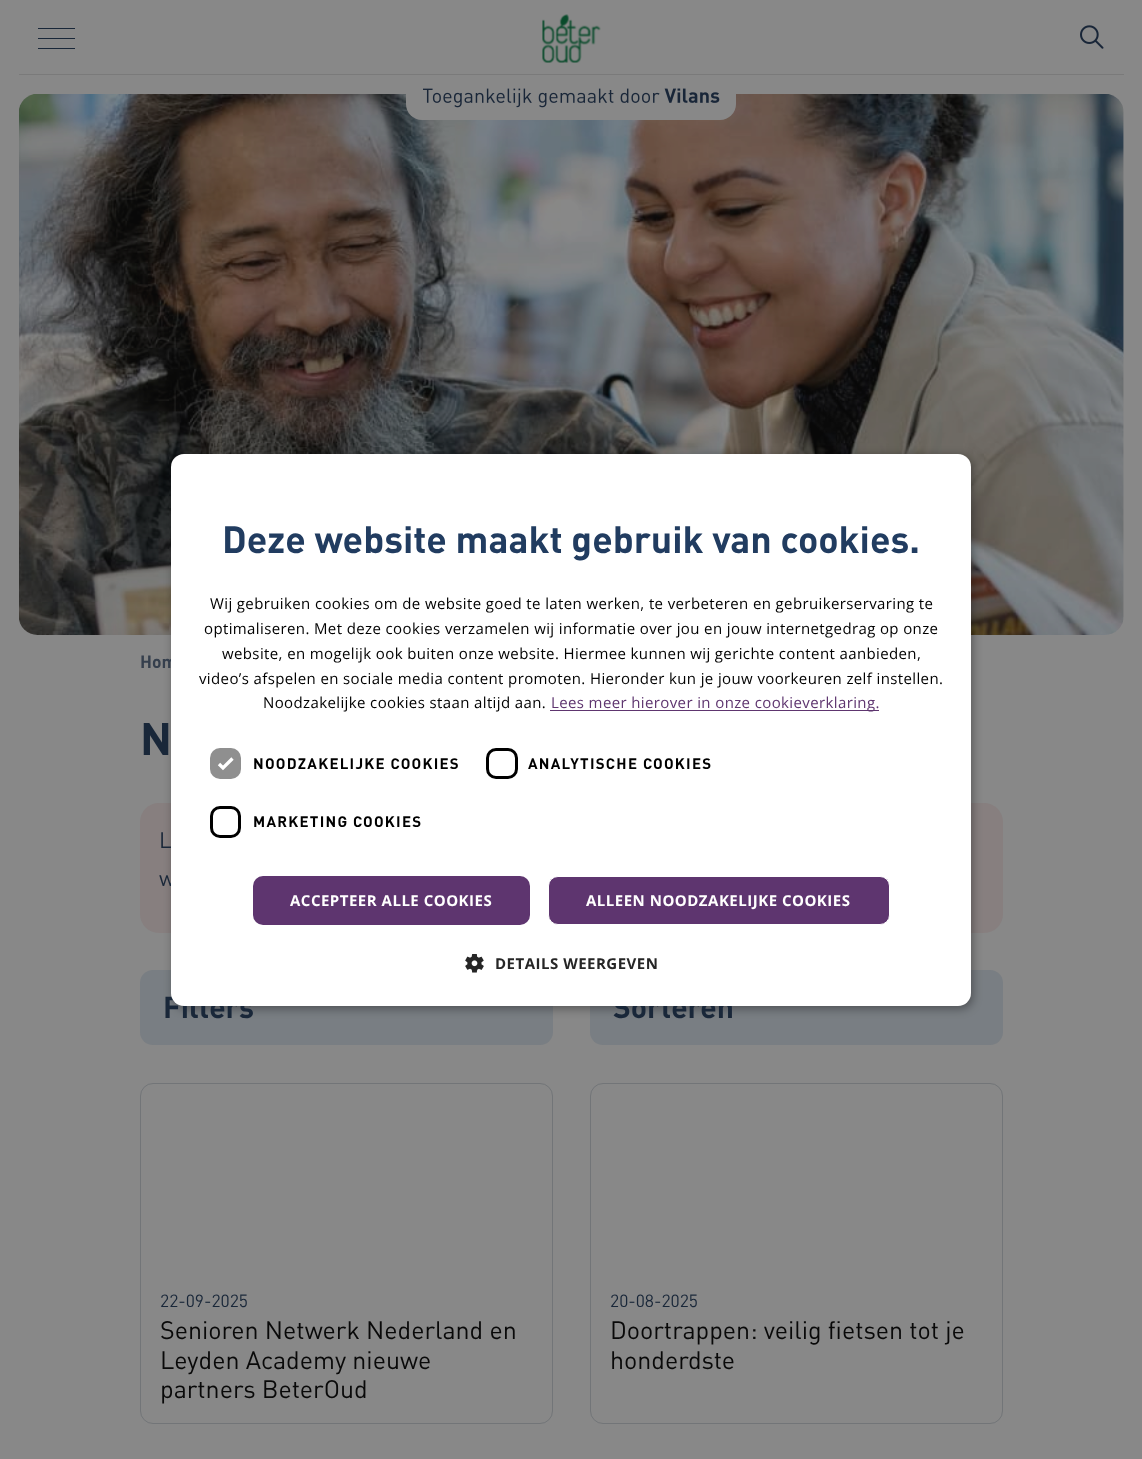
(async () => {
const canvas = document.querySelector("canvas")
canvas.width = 1142
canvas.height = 1459
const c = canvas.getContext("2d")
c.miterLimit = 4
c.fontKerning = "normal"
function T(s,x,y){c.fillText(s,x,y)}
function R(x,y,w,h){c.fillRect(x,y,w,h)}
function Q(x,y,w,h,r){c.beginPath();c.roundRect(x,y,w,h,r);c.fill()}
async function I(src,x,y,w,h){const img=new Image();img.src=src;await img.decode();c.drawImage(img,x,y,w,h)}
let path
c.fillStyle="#888"
R(0,0,1142,1459)
await I("5.png",19,94,1105,541)
c.fillStyle="#877f7f"
Q(140,803,863,130,19)
c.fillStyle="#797e83"
Q(140,970,413,75,13)
Q(590,970,413,75,13)
c.fillStyle="#00000059"
c.filter="blur(5px)"
c.beginPath()
c.roundRect(173,456,800,553,13)
c.fill()
c.filter="none"
c.font="bold 17.5px DIN"
c.fillStyle="#353f4d"
T("Hom",140,668)
c.font="22px DIN"
c.fillStyle="#192739"
T("w",159,886)
c.font="bold 30px DIN"
T("Filters",163,1018)
T("Sorteren",613,1018)
c.fillStyle="#fff"
Q(171,454,800,552,13)
c.font="bold 37.5px DIN"
c.fillStyle="#213c60"
T("Deze website maakt gebruik van cookies.",222,553)
c.letterSpacing="0.38px"
c.font="15px Open Sans"
c.fillStyle="#000"
T("Wij gebruiken cookies om de website goed te laten werken, te verbeteren en gebruikerservaring te",210,609)
T("optimaliseren. Met deze cookies verzamelen wij informatie over jou en jouw internetgedrag op onze",204,634)
T("website, en mogelijk ook buiten onze website. Hiermee kunnen wij gerichte content aanbieden,",222,659)
T("video’s afspelen en sociale media content promoten. Hieronder kun je jouw voorkeuren zelf instellen.",199,684)
T("Noodzakelijke cookies staan altijd aan.",263,708)
c.fillStyle="#5e356f"
R(550,710,329,1)
T("Lees meer hierover in onze cookieverklaring.",551,708)
c.fillStyle="#8f8f8f"
Q(210,748,31,31,10)
path = new Path2D("M219 764l4 4l9.5-9.5")
c.strokeStyle="#fff"
c.lineWidth=3.3
c.stroke(path)
c.letterSpacing="1.25px"
c.font="bold 15px DIN"
c.fillStyle="#000"
T("NOODZAKELIJKE COOKIES",253,769)
c.beginPath()
c.roundRect(487.5,749.5,29,28,8.5)
c.strokeStyle="#000"
c.lineWidth=3
c.stroke()
T("ANALYTISCHE COOKIES",528,769)
c.beginPath()
c.roundRect(211.5,807.5,28,29,8.5)
c.stroke()
T("MARKETING COOKIES",253,827)
c.fillStyle="#5e356f"
Q(253,876,277,49,10)
c.letterSpacing="0.5px"
c.font="bold 15px Open Sans"
c.fillStyle="#fff"
T("ACCEPTEER ALLE COOKIES",290,906)
c.fillStyle="#5e356f"
c.beginPath()
c.roundRect(548.5,876.5,341,48,9.5)
c.fill()
c.strokeStyle="#fff"
c.lineWidth=1
c.stroke()
c.fillStyle="#fff"
T("ALLEEN NOODZAKELIJKE COOKIES",586,906)
await I("1.png",465,954,19,19)
c.fillStyle="#262626"
T("DETAILS WEERGEVEN",495,969)
c.fillStyle="#888"
c.beginPath()
c.roundRect(406,69,330,51,[0,0,16,16])
c.fill()
c.fillStyle="#7a7a7a"
R(19,74,1105,1)
c.fillStyle="#192739"
R(38,38,37,1)
R(38,28,37,1)
R(38,48,37,1)
await I("2.png",542,14,59,49)
await I("3.png",1080,25,24,24)
await I("4.png",423,88,297,20)
c.letterSpacing="0px"
c.font="bold 45px DIN"
T("N",140,755)
c.font="22px DIN"
T("L",159,848)
c.beginPath()
c.roundRect(140.5,1083.5,412,340,12.5)
c.strokeStyle="#727578"
c.stroke()
c.font="17.5px DIN"
T("22-09-2025",160,1307)
c.font="25px DIN"
c.fillStyle="#090909"
T("Senioren Netwerk Nederland en",160,1339)
T("Leyden Academy nieuwe",160,1369)
T("partners BeterOud",160,1398)
c.beginPath()
c.roundRect(590.5,1083.5,412,340,12.5)
c.stroke()
c.font="17.5px DIN"
c.fillStyle="#192739"
T("20-08-2025",610,1307)
c.font="25px DIN"
c.fillStyle="#090909"
T("Doortrappen: veilig fietsen tot je",610,1339)
T("honderdste",610,1369)
})()
